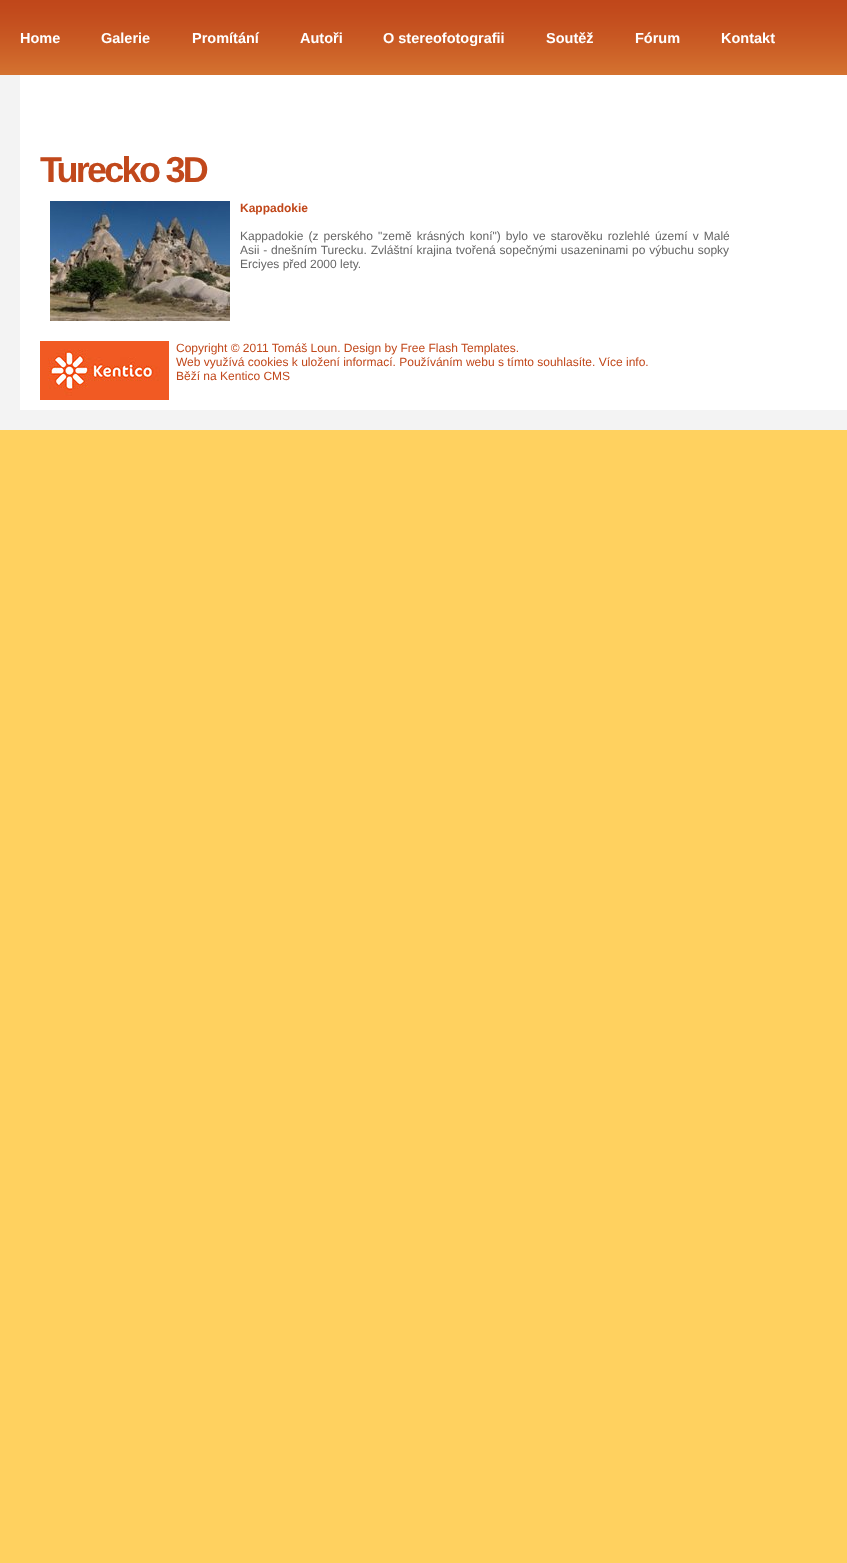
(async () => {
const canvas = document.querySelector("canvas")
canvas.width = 847
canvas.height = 1563
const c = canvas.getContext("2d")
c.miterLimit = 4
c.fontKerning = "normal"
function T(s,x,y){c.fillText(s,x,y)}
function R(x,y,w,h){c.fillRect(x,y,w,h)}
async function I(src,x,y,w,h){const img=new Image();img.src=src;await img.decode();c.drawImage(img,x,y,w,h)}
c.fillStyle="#ffd15f"
R(0,0,847,1563)
await I("1.png",0,0,847,75)
c.font="bold 14.5px Liberation Sans"
c.fillStyle="#fff"
T("Home",20,43)
T("Galerie",101,43)
T("Promítání",192,43)
T("Autoři",300,43)
T("O stereofotografii",383,43)
T("Soutěž",546,43)
T("Fórum",635,43)
T("Kontakt",721,43)
R(20,75,827,335)
c.fillStyle="#f3f3f3"
R(20,410,827,20)
R(0,75,20,355)
c.letterSpacing="-2.75px"
c.font="bold 36px Liberation Sans"
c.fillStyle="#c1481b"
T("Turecko 3D",40,182)
await I("2.png",50,201,180,120)
c.letterSpacing="0px"
c.font="bold 12px Liberation Sans"
T("Kappadokie",240,212)
c.wordSpacing="1.75px"
c.font="12px Liberation Sans"
c.fillStyle="#666"
T("Kappadokie (z perského \"země krásných koní\") bylo ve starověku rozlehlé území v Malé",240,240)
c.wordSpacing="0.5px"
T("Asii - dnešním Turecku. Zvláštní krajina tvořená sopečnými usazeninami po výbuchu sopky",240,254)
c.wordSpacing="0px"
T("Erciyes před 2000 lety.",240,268)
await I("3.png",40,341,129,59)
c.fillStyle="#c1481b"
T("Copyright © 2011 Tomáš Loun. Design by Free Flash Templates.",176,352)
T("Web využívá cookies k uložení informací. Používáním webu s tímto souhlasíte. Více info.",176,366)
T("Běží na Kentico CMS",176,380)
})()
